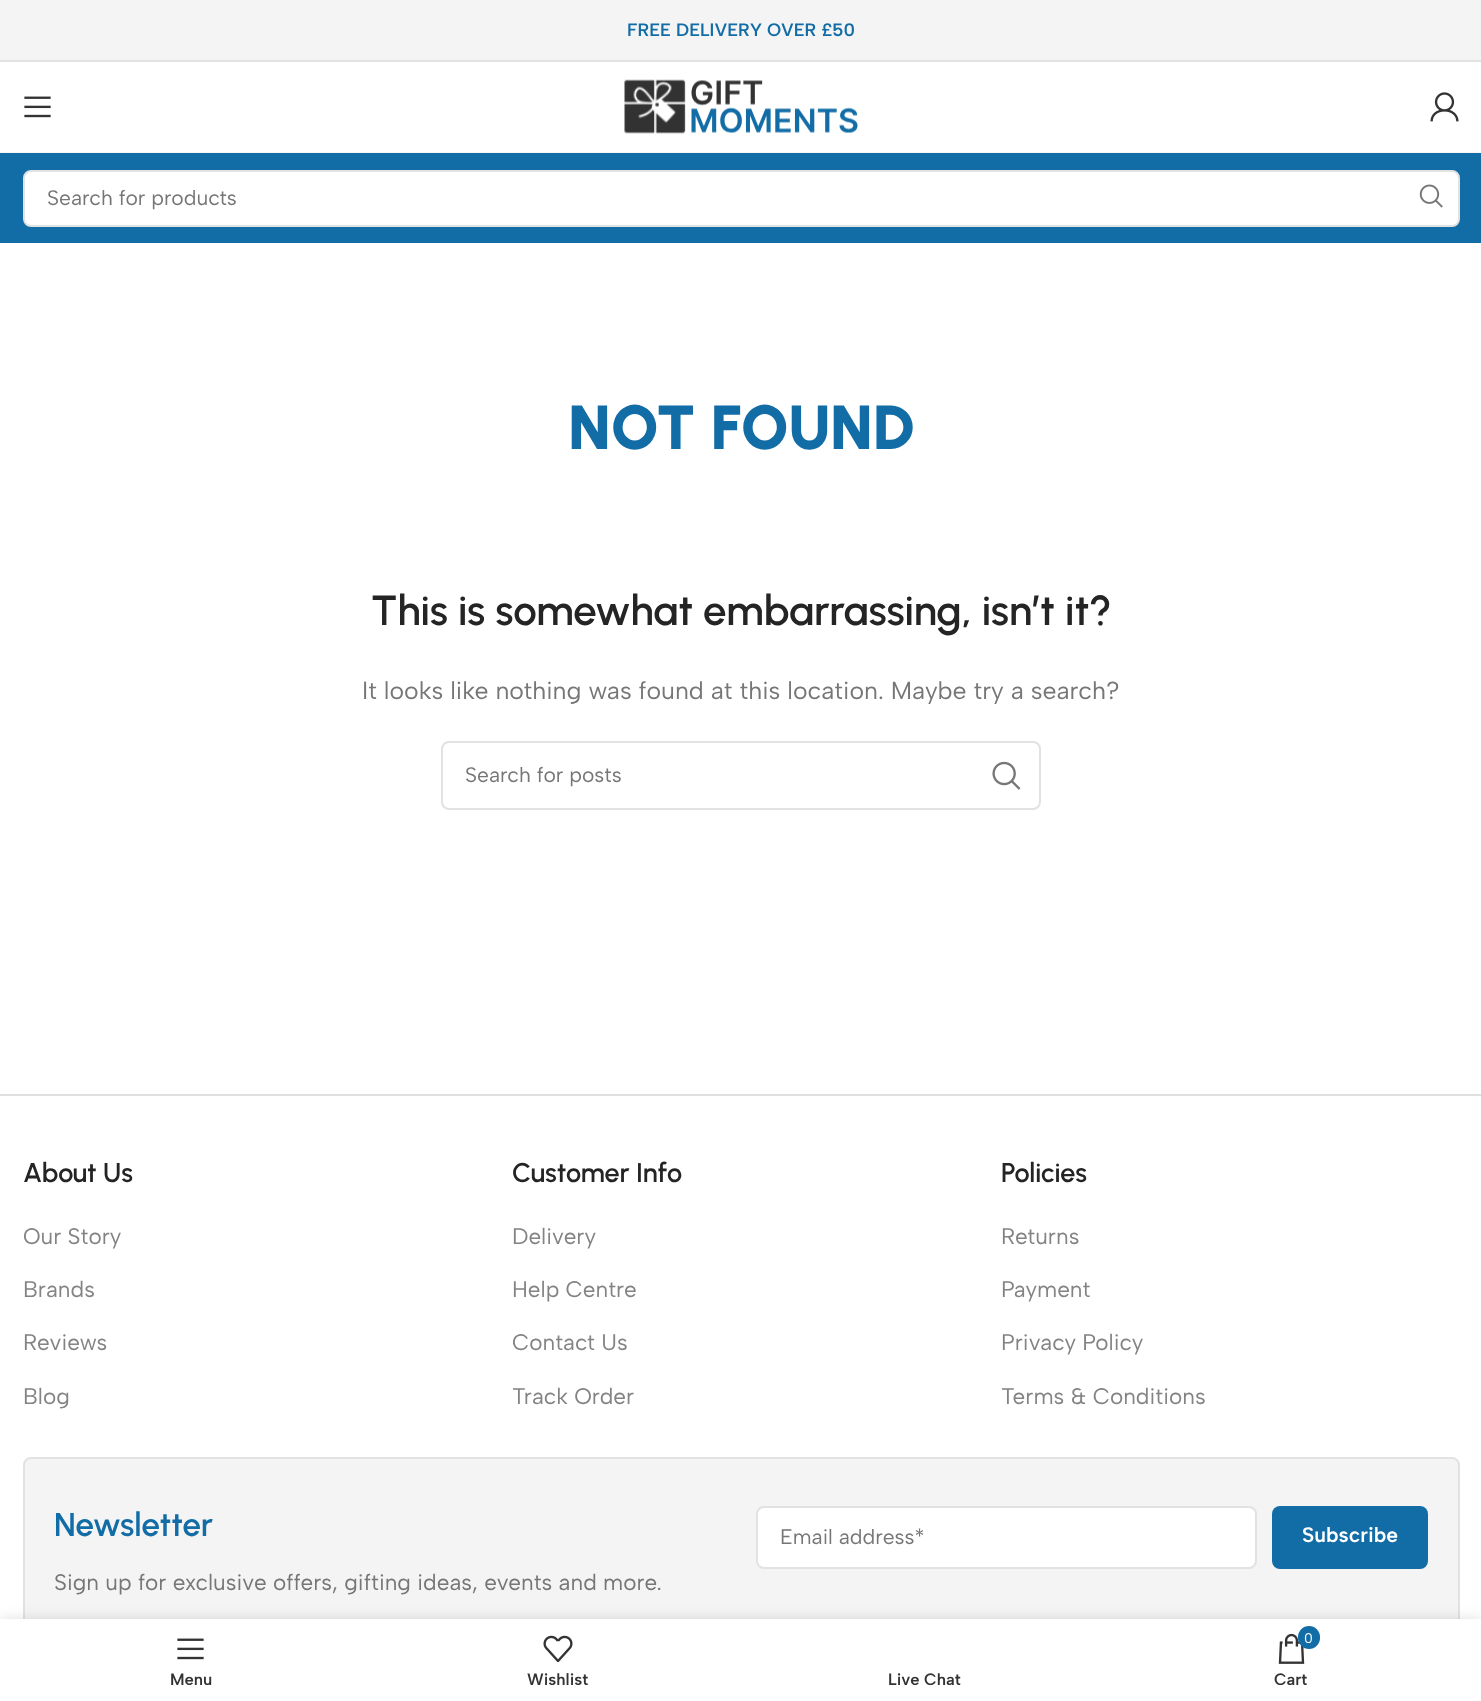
(async () => {
const canvas = document.querySelector("canvas")
canvas.width = 1481
canvas.height = 1701
const c = canvas.getContext("2d")
c.miterLimit = 4
c.fontKerning = "normal"
function T(s,x,y){c.fillText(s,x,y)}
function R(x,y,w,h){c.fillRect(x,y,w,h)}
function Q(x,y,w,h,r){c.beginPath();c.roundRect(x,y,w,h,r);c.fill()}
async function I(src,x,y,w,h){const img=new Image();img.src=src;await img.decode();c.drawImage(img,x,y,w,h)}
c.fillStyle="#fff"
R(0,0,1481,1701)
c.fillStyle="#f4f4f4"
R(0,0,1481,60)
c.fillStyle="#e2e2e2"
R(0,60,1481,2)
c.font="600 18px Albert Sans"
c.fillStyle="#126ca6"
T("FREE DELIVERY OVER £50",627,36)
c.fillStyle="#f6f5f8"
R(0,152,1481,1)
await I("1.png",24,96,27,22)
await I("2.png",624,79,234,55)
await I("3.png",1430,92,29,30)
c.fillStyle="#126ca6"
R(0,153,1481,90)
c.fillStyle="#fff"
c.beginPath()
c.roundRect(24,171,1435,55,7)
c.fill()
c.strokeStyle="#e2e2e2"
c.lineWidth=2
c.stroke()
c.font="21px Albert Sans"
c.fillStyle="#767676"
T("Search for products",47,205)
await I("4.png",1419,184,24,24)
c.font="900 62.25px Urbanist"
c.fillStyle="#126ca6"
T("NOT FOUND",568,449)
c.font="600 42px Urbanist"
c.fillStyle="#242424"
T("This is somewhat embarrassing, isn’t it?",371,625)
c.font="24.75px Albert Sans"
c.fillStyle="#767676"
T("It looks like nothing was found at this location. Maybe try a search?",362,699)
c.beginPath()
c.roundRect(442,742,598,67,7)
c.stroke()
c.font="21px Albert Sans"
T("Search for posts",465,782)
await I("5.png",992,761,29,29)
c.fillStyle="#e0e0e0"
R(0,1094,1481,2)
c.font="600 27px Urbanist"
c.fillStyle="#242424"
T("About Us",23,1182)
c.font="22.5px Albert Sans"
c.fillStyle="#838383"
T("Our Story",23,1244)
T("Brands",23,1297)
T("Reviews",23,1350)
T("Blog",23,1404)
c.font="600 27px Urbanist"
c.fillStyle="#242424"
T("Customer Info",512,1182)
c.font="22.5px Albert Sans"
c.fillStyle="#838383"
T("Delivery",512,1244)
T("Help Centre",512,1297)
T("Contact Us",512,1350)
T("Track Order",512,1404)
c.font="600 27px Urbanist"
c.fillStyle="#242424"
T("Policies",1001,1182)
c.font="22.5px Albert Sans"
c.fillStyle="#838383"
T("Returns",1001,1244)
T("Payment",1001,1297)
T("Privacy Policy",1001,1350)
T("Terms & Conditions",1001,1404)
c.fillStyle="#f4f4f4"
c.beginPath()
c.roundRect(24,1458,1435,188,7)
c.fill()
c.stroke()
c.font="600 33px Urbanist"
c.fillStyle="#126ca6"
T("Newsletter",54,1536)
c.font="22.5px Albert Sans"
c.fillStyle="#767676"
T("Sign up for exclusive offers, gifting ideas, events and more.",54,1590)
c.fillStyle="#fff"
c.beginPath()
c.roundRect(757,1507,499,61,7)
c.fill()
c.stroke()
c.font="21px Albert Sans"
c.fillStyle="#767676"
T("Email address*",780,1544)
c.fillStyle="#126ca6"
Q(1272,1506,156,63,8)
c.font="600 21px Albert Sans"
c.fillStyle="#fff"
T("Subscribe",1302,1542)
c.fillStyle="#0000001f"
c.filter="blur(7px)"
c.beginPath()
c.rect(0,1619,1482,82)
c.fill()
c.filter="none"
c.fillStyle="#fff"
R(0,1619,1481,82)
await I("1.png",177,1638,27,22)
c.font="600 16.5px Albert Sans"
c.fillStyle="#333"
T("Menu",170,1685)
await I("6.png",543,1635,30,27)
T("Wishlist",527,1685)
T("Live Chat",888,1685)
await I("7.png",1278,1633,27,31)
c.fillStyle="#126ca6"
Q(1298,1626,22,23,11)
c.font="14px Albert Sans"
c.fillStyle="#fff"
T("0",1304,1643)
c.font="600 16.5px Albert Sans"
c.fillStyle="#333"
T("Cart",1274,1685)
})()
